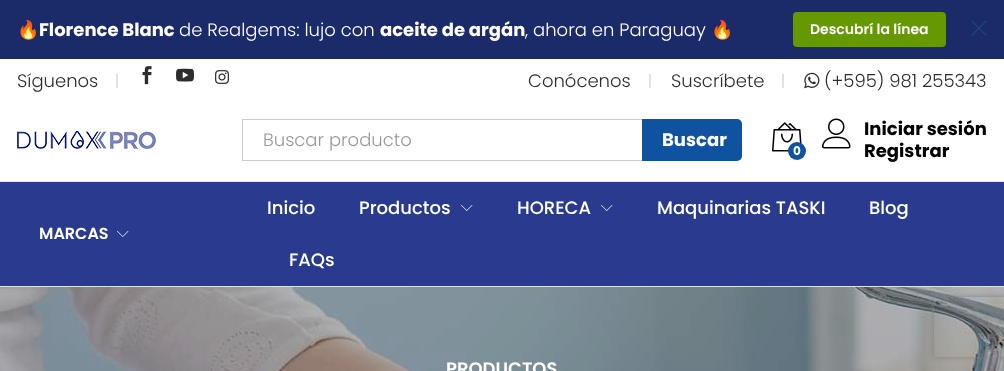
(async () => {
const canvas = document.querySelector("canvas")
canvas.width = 1004
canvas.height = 371
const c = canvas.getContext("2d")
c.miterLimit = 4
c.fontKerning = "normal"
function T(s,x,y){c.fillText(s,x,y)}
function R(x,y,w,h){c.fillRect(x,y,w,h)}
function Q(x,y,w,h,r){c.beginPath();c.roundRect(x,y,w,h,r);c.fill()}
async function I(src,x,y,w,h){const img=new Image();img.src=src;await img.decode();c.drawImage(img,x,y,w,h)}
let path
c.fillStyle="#fff"
R(0,0,1004,371)
c.fillStyle="#1b2b69"
R(0,0,1004,59)
c.font="18px Noto Color Emoji"
c.fillStyle="#fff"
T("🔥",17,36)
c.font="bold 18px Poppins"
T("Florence Blanc",39,36)
c.font="300 18px Poppins"
T("de Realgems: lujo con",179,36)
c.font="bold 18px Poppins"
T("aceite de argán",380,36)
c.font="300 18px Poppins"
T(", ahora en Paraguay",525,36)
c.font="18px Noto Color Emoji"
T("🔥",711,36)
c.fillStyle="#690"
Q(793,12,153,35,4)
c.font="600 14px Poppins"
c.fillStyle="#fff"
T("Descubrí la línea",810,34)
await I("1.png",971,20,16,16)
c.font="300 18px Poppins"
c.fillStyle="#2d2d2d"
T("Síguenos",17,87)
c.fillStyle="#e1e1e1"
R(116,74,2,14)
await I("2.png",142,66,10,19)
await I("3.png",176,68,18,14)
await I("4.png",215,70,14,14)
c.fillStyle="#2d2d2d"
T("Conócenos",528,87)
c.fillStyle="#e1e1e1"
R(649,74,2,14)
c.fillStyle="#2d2d2d"
T("Suscríbete",671,87)
c.fillStyle="#e1e1e1"
R(782,74,2,14)
await I("5.png",804,72,16,17)
c.fillStyle="#2d2d2d"
T("(+595) 981 255343",824,87)
await I("6.png",17,131,139,18)
c.fillStyle="#ccc"
R(242,119,1,42)
R(243,119,399,1)
R(243,160,399,1)
c.fillStyle="#999"
T("Buscar producto",263,146)
c.fillStyle="#0f53a0"
c.beginPath()
c.roundRect(642,119,100,42,[0,5,5,0])
c.fill()
c.font="bold 18px Poppins"
c.fillStyle="#fff"
T("Buscar",662,146)
await I("7.png",772,122,30,30)
c.fillStyle="#0f53a0"
c.beginPath()
c.arc(797,151,9,0,7)
c.fill()
c.font="bold 12px Poppins"
c.fillStyle="#fff"
T("0",793,155)
await I("8.png",822,118,29,31)
c.font="bold 18px Poppins"
c.fillStyle="#000"
T("Iniciar sesión",864,135)
T("Registrar",864,157)
c.fillStyle="#2a3b8f"
R(0,182,1004,104)
c.fillStyle="#e1e1e1"
R(0,181,1004,1)
R(0,286,1004,1)
c.font="600 16px Poppins"
c.fillStyle="#fff"
T("MARCAS",39,239)
await I("9.png",117,231,12,6)
c.font="500 18px Poppins"
T("Inicio",267,214)
T("Productos",359,214)
await I("9.png",461,205,12,6)
T("HORECA",517,214)
await I("9.png",601,205,12,6)
T("Maquinarias TASKI",657,214)
T("Blog",869,214)
T("FAQs",289,266)
await I("10.png",0,287,1004,84)
c.font="600 18px Poppins"
T("PRODUCTOS",446,375)
c.save()
path = new Path2D("M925 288h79v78h-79zm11 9h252c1 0 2 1 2 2v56c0 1-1 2-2 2h-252c-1 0-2-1-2-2v-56c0-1 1-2 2-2z")
c.clip(path,"evenodd")
c.fillStyle="#808080"
c.filter="blur(2.5px)"
c.beginPath()
c.roundRect(934,297,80,60,2)
c.fill()
c.filter="none"
c.restore()
})()
